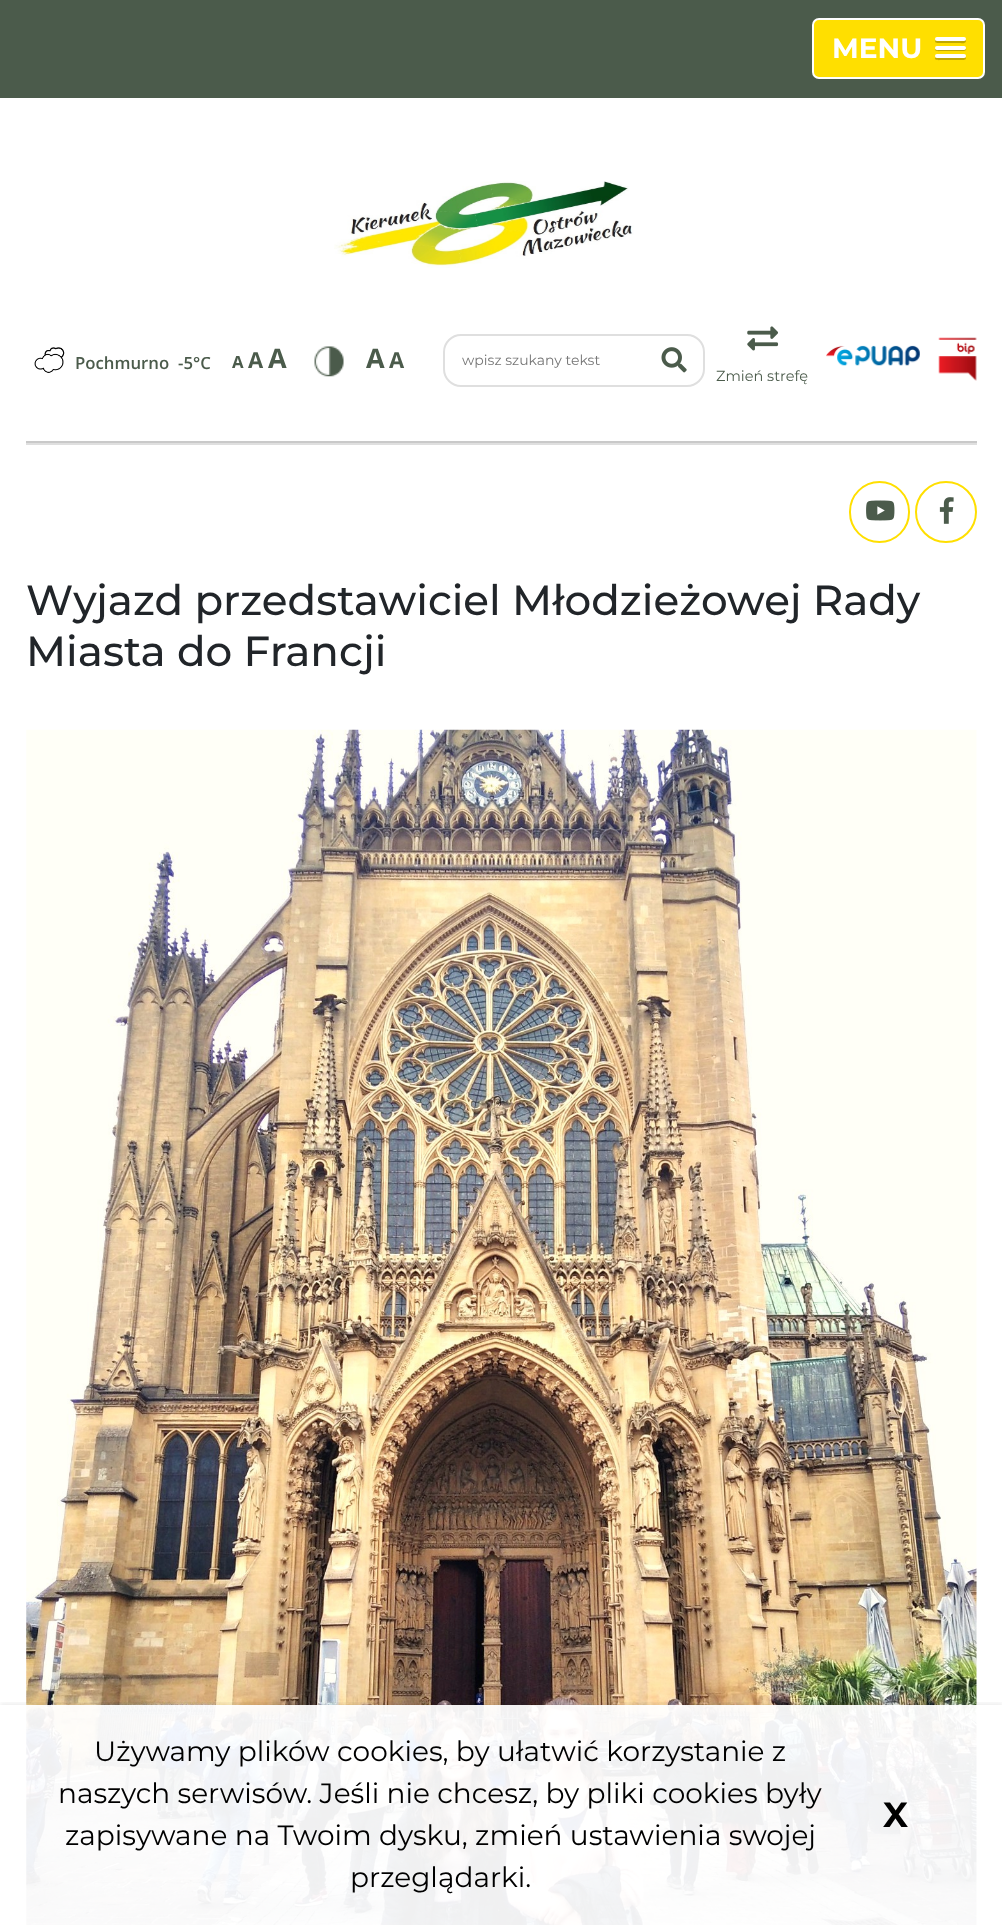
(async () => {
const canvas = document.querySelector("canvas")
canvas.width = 1002
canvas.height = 1925
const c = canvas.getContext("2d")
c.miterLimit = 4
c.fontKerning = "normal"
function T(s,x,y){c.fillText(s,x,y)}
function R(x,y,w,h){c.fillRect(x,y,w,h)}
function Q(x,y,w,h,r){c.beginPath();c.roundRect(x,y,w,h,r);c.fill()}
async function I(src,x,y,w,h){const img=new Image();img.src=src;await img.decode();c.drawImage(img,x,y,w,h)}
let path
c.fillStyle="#fff"
R(0,0,1002,1925)
c.fillStyle="#4b5b4b"
R(0,0,1002,98)
c.fillStyle="#ffdf00"
c.beginPath()
c.roundRect(813,19,171,59,6)
c.fill()
c.strokeStyle="#fff"
c.lineWidth=2
c.stroke()
c.font="bold 28px Montserrat"
c.fillStyle="#fff"
T("MENU",832,58)
c.fillStyle="#bfa700"
path = new Path2D("M935.5 40c-2.5 4 5.5 3 6 3h18c1 0 6 1 6.5-1.5c0-.5 0-1.5-.5-2l-1 .5c-2.5 .5-28.5 .5-29 0z")
c.fill(path)
c.fillStyle="#fff"
Q(935,37,31,4,2)
c.fillStyle="#bfa700"
path = new Path2D("M935 48.5c-1 3.5 5.5 2.5 6.5 2.5h18c1 0 8 1 6.5-3l-1.5 1h-28.5z")
c.fill(path)
c.fillStyle="#fff"
Q(935,46,31,4,2)
c.fillStyle="#bfa700"
path = new Path2D("M935 57.5c-1 3.5 5.5 2.5 6.5 2.5h18c.5 0 8.5 1 6-3l-1 .5h-28.5z")
c.fill(path)
c.fillStyle="#fff"
Q(935,54,31,4,2)
await I("1.png",334,181,300,87)
await I("2.png",34,347,31,26)
c.font="600 16.75px Open Sans"
c.fillStyle="#4b5b4b"
T("Pochmurno",75,369)
T("-5°C",178,369)
c.font="bold 16.75px Open Sans"
T("A",232,368)
c.font="bold 22px Open Sans"
T("A",248,368)
c.font="bold 27px Open Sans"
T("A",268,368)
await I("3.png",314,346,30,31)
T("A",366,368)
c.font="bold 22px Open Sans"
T("A",389,368)
c.beginPath()
c.roundRect(444,335,260,51,17)
c.strokeStyle="#dfdfdf"
c.stroke()
c.font="14px Montserrat"
c.fillStyle="#757575"
T("wpisz szukany tekst",462,365)
await I("4.png",661,347,26,26)
await I("5.png",826,345,94,21)
await I("6.png",938,337,39,44)
await I("7.png",747,326,32,25)
c.font="14.5px Montserrat"
c.fillStyle="#4b5b4b"
T("Zmień strefę",716,381)
c.fillStyle="#dfdfdf"
R(26,443,951,2)
c.fillStyle="#c9c9c9"
R(26,441,951,2)
c.beginPath()
c.roundRect(850,482,59,60,29.5)
c.strokeStyle="#ffdf00"
c.stroke()
await I("8.png",866,500,29,21)
c.beginPath()
c.arc(946,512,30,0,7)
c.stroke()
await I("9.png",939,497,15,27)
c.font="500 42px Montserrat"
c.fillStyle="#212529"
T("Wyjazd przedstawiciel Młodzieżowej Rady",26,615)
T("Miasta do Francji",26,666)
await I("10.png",26,729,951,1196)
c.save()
c.beginPath()
c.rect(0,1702,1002,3)
c.clip()
c.fillStyle="#00000012"
c.filter="blur(2.5px)"
c.beginPath()
c.rect(0,1703,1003,220)
c.fill()
c.filter="none"
c.restore()
c.fillStyle="#fffffff0"
R(26,1705,951,220)
c.font="28px Montserrat"
c.fillStyle="#000"
T("Używamy plików cookies, by ułatwić korzystanie z",94,1761)
T("naszych serwisów. Jeśli nie chcesz, by pliki cookies były",58,1803)
c.font="bold 35px Montserrat"
T("X",883,1827)
c.font="28px Montserrat"
T("zapisywane na Twoim dysku, zmień ustawienia swojej",65,1845)
T("przeglądarki.",350,1887)
})()
